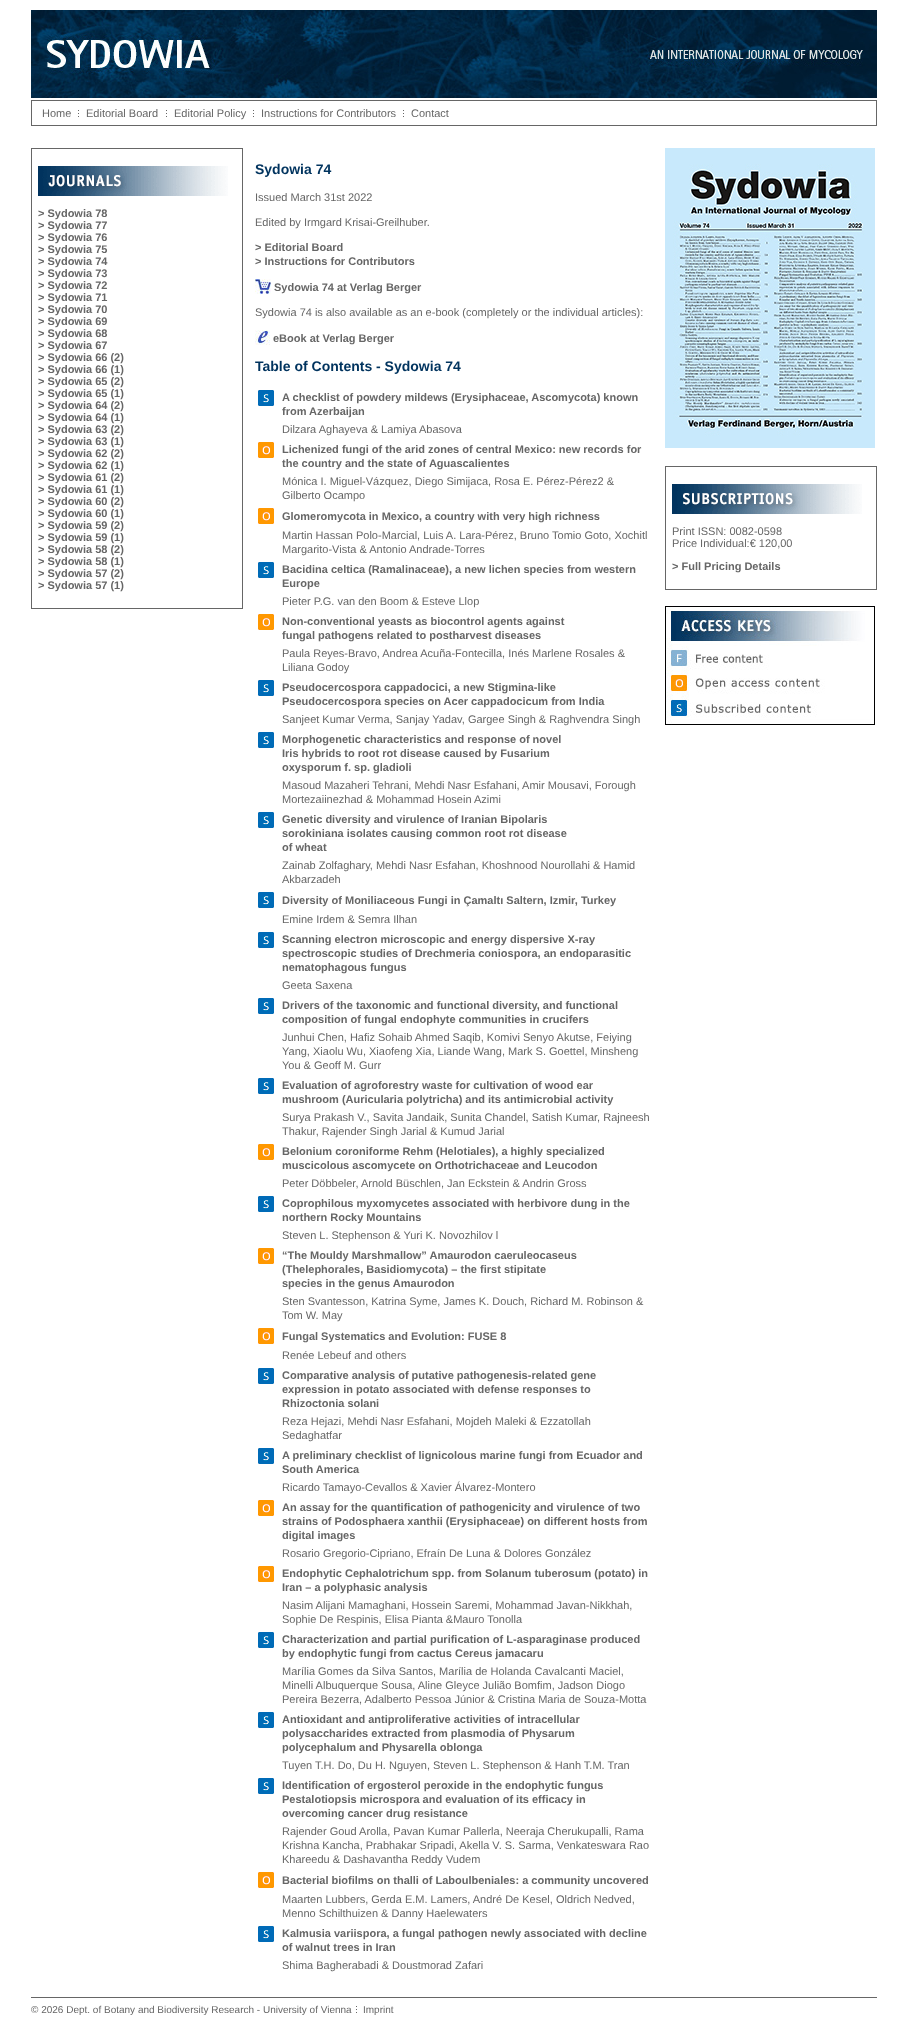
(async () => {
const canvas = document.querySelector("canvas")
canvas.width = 908
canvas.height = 2027
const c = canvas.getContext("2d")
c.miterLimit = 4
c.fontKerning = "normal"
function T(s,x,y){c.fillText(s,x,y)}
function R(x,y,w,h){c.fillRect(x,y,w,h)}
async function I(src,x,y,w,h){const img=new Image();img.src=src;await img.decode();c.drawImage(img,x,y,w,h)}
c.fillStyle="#fff"
R(0,0,908,2027)
await I("1.png",31,10,846,88)
c.strokeStyle="#666"
c.strokeRect(31.5,100.5,845,25)
c.font="11px Liberation Sans"
c.fillStyle="#666"
T("Home",42,117)
await I("2.png",78,110,1,7)
T("Editorial Board",86,117)
await I("2.png",166,110,1,7)
T("Editorial Policy",174,117)
await I("2.png",253,110,1,7)
T("Instructions for Contributors",261,117)
await I("2.png",403,110,1,7)
T("Contact",411,117)
c.strokeRect(31.5,148.5,211,460)
await I("3.png",38,166,190,30)
c.font="bold 11px Liberation Sans"
T("> Sydowia 78",38,217)
T("> Sydowia 77",38,229)
T("> Sydowia 76",38,241)
T("> Sydowia 75",38,253)
T("> Sydowia 74",38,265)
T("> Sydowia 73",38,277)
T("> Sydowia 72",38,289)
T("> Sydowia 71",38,301)
T("> Sydowia 70",38,313)
T("> Sydowia 69",38,325)
T("> Sydowia 68",38,337)
T("> Sydowia 67",38,349)
T("> Sydowia 66 (2)",38,361)
T("> Sydowia 66 (1)",38,373)
T("> Sydowia 65 (2)",38,385)
T("> Sydowia 65 (1)",38,397)
T("> Sydowia 64 (2)",38,409)
T("> Sydowia 64 (1)",38,421)
T("> Sydowia 63 (2)",38,433)
T("> Sydowia 63 (1)",38,445)
T("> Sydowia 62 (2)",38,457)
T("> Sydowia 62 (1)",38,469)
T("> Sydowia 61 (2)",38,481)
T("> Sydowia 61 (1)",38,493)
T("> Sydowia 60 (2)",38,505)
T("> Sydowia 60 (1)",38,517)
T("> Sydowia 59 (2)",38,529)
T("> Sydowia 59 (1)",38,541)
T("> Sydowia 58 (2)",38,553)
T("> Sydowia 58 (1)",38,565)
T("> Sydowia 57 (2)",38,577)
T("> Sydowia 57 (1)",38,589)
c.font="bold 14px Liberation Sans"
c.fillStyle="#00335e"
T("Sydowia 74",255,174)
c.font="11px Liberation Sans"
c.fillStyle="#666"
T("Issued March 31st 2022",255,201)
T("Edited by Irmgard Krisai-Greilhuber.",255,226)
c.font="bold 11px Liberation Sans"
T("> Editorial Board",255,251)
T("> Instructions for Contributors",255,265)
await I("4.png",255,279,16,15)
T("Sydowia 74 at Verlag Berger",274,291)
c.font="11px Liberation Sans"
T("Sydowia 74 is also available as an e-book (completely or the individual articles):",255,316)
await I("5.png",255,330,15,15)
c.font="bold 11px Liberation Sans"
T("eBook at Verlag Berger",273,342)
c.font="bold 14px Liberation Sans"
c.fillStyle="#00335e"
T("Table of Contents - Sydowia 74",255,371)
await I("6.png",258,390,16,16)
c.font="bold 11px Liberation Sans"
c.fillStyle="#666"
T("A checklist of powdery mildews (Erysiphaceae, Ascomycota) known",282,401)
T("from Azerbaijan",282,415)
c.font="11px Liberation Sans"
T("Dilzara Aghayeva & Lamiya Abasova",282,433)
await I("7.png",258,442,16,16)
c.font="bold 11px Liberation Sans"
T("Lichenized fungi of the arid zones of central Mexico: new records for",282,453)
T("the country and the state of Aguascalientes",282,467)
c.font="11px Liberation Sans"
T("Mónica I. Miguel-Vázquez, Diego Simijaca, Rosa E. Pérez-Pérez2 &",282,485)
T("Gilberto Ocampo",282,499)
await I("7.png",258,508,16,16)
c.font="bold 11px Liberation Sans"
T("Glomeromycota in Mexico, a country with very high richness",282,520)
c.font="11px Liberation Sans"
T("Martin Hassan Polo-Marcial, Luis A. Lara-Pérez, Bruno Tomio Goto, Xochitl",282,539)
T("Margarito-Vista & Antonio Andrade-Torres",282,553)
await I("6.png",258,562,16,16)
c.font="bold 11px Liberation Sans"
T("Bacidina celtica (Ramalinaceae), a new lichen species from western",282,573)
T("Europe",282,587)
c.font="11px Liberation Sans"
T("Pieter P.G. van den Boom & Esteve Llop",282,605)
await I("7.png",258,614,16,16)
c.font="bold 11px Liberation Sans"
T("Non-conventional yeasts as biocontrol agents against",282,625)
T("fungal pathogens related to postharvest diseases",282,639)
c.font="11px Liberation Sans"
T("Paula Reyes-Bravo, Andrea Acuña-Fontecilla, Inés Marlene Rosales &",282,657)
T("Liliana Godoy",282,671)
await I("6.png",258,680,16,16)
c.font="bold 11px Liberation Sans"
T("Pseudocercospora cappadocici, a new Stigmina-like",282,691)
T("Pseudocercospora species on Acer cappadocicum from India",282,705)
c.font="11px Liberation Sans"
T("Sanjeet Kumar Verma, Sanjay Yadav, Gargee Singh & Raghvendra Singh",282,723)
await I("6.png",258,732,16,16)
c.font="bold 11px Liberation Sans"
T("Morphogenetic characteristics and response of novel",282,743)
T("Iris hybrids to root rot disease caused by Fusarium",282,757)
T("oxysporum f. sp. gladioli",282,771)
c.font="11px Liberation Sans"
T("Masoud Mazaheri Tehrani, Mehdi Nasr Esfahani, Amir Mousavi, Forough",282,789)
T("Mortezaiinezhad & Mohammad Hosein Azimi",282,803)
await I("6.png",258,812,16,16)
c.font="bold 11px Liberation Sans"
T("Genetic diversity and virulence of Iranian Bipolaris",282,823)
T("sorokiniana isolates causing common root rot disease",282,837)
T("of wheat",282,851)
c.font="11px Liberation Sans"
T("Zainab Zolfaghary, Mehdi Nasr Esfahan, Khoshnood Nourollahi & Hamid",282,869)
T("Akbarzadeh",282,883)
await I("6.png",258,892,16,16)
c.font="bold 11px Liberation Sans"
T("Diversity of Moniliaceous Fungi in Çamaltı Saltern, Izmir, Turkey",282,904)
c.font="11px Liberation Sans"
T("Emine Irdem & Semra Ilhan",282,923)
await I("6.png",258,932,16,16)
c.font="bold 11px Liberation Sans"
T("Scanning electron microscopic and energy dispersive X-ray",282,943)
T("spectroscopic studies of Drechmeria coniospora, an endoparasitic",282,957)
T("nematophagous fungus",282,971)
c.font="11px Liberation Sans"
T("Geeta Saxena",282,989)
await I("6.png",258,998,16,16)
c.font="bold 11px Liberation Sans"
T("Drivers of the taxonomic and functional diversity, and functional",282,1009)
T("composition of fungal endophyte communities in crucifers",282,1023)
c.font="11px Liberation Sans"
T("Junhui Chen, Hafiz Sohaib Ahmed Saqib, Komivi Senyo Akutse, Feiying",282,1041)
T("Yang, Xiaolu Wu, Xiaofeng Xia, Liande Wang, Mark S. Goettel, Minsheng",282,1055)
T("You & Geoff M. Gurr",282,1069)
await I("6.png",258,1078,16,16)
c.font="bold 11px Liberation Sans"
T("Evaluation of agroforestry waste for cultivation of wood ear",282,1089)
T("mushroom (Auricularia polytricha) and its antimicrobial activity",282,1103)
c.font="11px Liberation Sans"
T("Surya Prakash V., Savita Jandaik, Sunita Chandel, Satish Kumar, Rajneesh",282,1121)
T("Thakur, Rajender Singh Jarial & Kumud Jarial",282,1135)
await I("7.png",258,1144,16,16)
c.font="bold 11px Liberation Sans"
T("Belonium coroniforme Rehm (Helotiales), a highly specialized",282,1155)
T("muscicolous ascomycete on Orthotrichaceae and Leucodon",282,1169)
c.font="11px Liberation Sans"
T("Peter Döbbeler, Arnold Büschlen, Jan Eckstein & Andrin Gross",282,1187)
await I("6.png",258,1196,16,16)
c.font="bold 11px Liberation Sans"
T("Coprophilous myxomycetes associated with herbivore dung in the",282,1207)
T("northern Rocky Mountains",282,1221)
c.font="11px Liberation Sans"
T("Steven L. Stephenson & Yuri K. Novozhilov l",282,1239)
await I("7.png",258,1248,16,16)
c.font="bold 11px Liberation Sans"
T("“The Mouldy Marshmallow” Amaurodon caeruleocaseus",282,1259)
T("(Thelephorales, Basidiomycota) – the first stipitate",282,1273)
T("species in the genus Amaurodon",282,1287)
c.font="11px Liberation Sans"
T("Sten Svantesson, Katrina Syme, James K. Douch, Richard M. Robinson &",282,1305)
T("Tom W. May",282,1319)
await I("7.png",258,1328,16,16)
c.font="bold 11px Liberation Sans"
T("Fungal Systematics and Evolution: FUSE 8",282,1340)
c.font="11px Liberation Sans"
T("Renée Lebeuf and others",282,1359)
await I("6.png",258,1368,16,16)
c.font="bold 11px Liberation Sans"
T("Comparative analysis of putative pathogenesis-related gene",282,1379)
T("expression in potato associated with defense responses to",282,1393)
T("Rhizoctonia solani",282,1407)
c.font="11px Liberation Sans"
T("Reza Hejazi, Mehdi Nasr Esfahani, Mojdeh Maleki & Ezzatollah",282,1425)
T("Sedaghatfar",282,1439)
await I("6.png",258,1448,16,16)
c.font="bold 11px Liberation Sans"
T("A preliminary checklist of lignicolous marine fungi from Ecuador and",282,1459)
T("South America",282,1473)
c.font="11px Liberation Sans"
T("Ricardo Tamayo-Cevallos & Xavier Álvarez-Montero",282,1491)
await I("7.png",258,1500,16,16)
c.font="bold 11px Liberation Sans"
T("An assay for the quantification of pathogenicity and virulence of two",282,1511)
T("strains of Podosphaera xanthii (Erysiphaceae) on different hosts from",282,1525)
T("digital images",282,1539)
c.font="11px Liberation Sans"
T("Rosario Gregorio-Cipriano, Efraín De Luna & Dolores González",282,1557)
await I("7.png",258,1566,16,16)
c.font="bold 11px Liberation Sans"
T("Endophytic Cephalotrichum spp. from Solanum tuberosum (potato) in",282,1577)
T("Iran – a polyphasic analysis",282,1591)
c.font="11px Liberation Sans"
T("Nasim Alijani Mamaghani, Hossein Saremi, Mohammad Javan-Nikkhah,",282,1609)
T("Sophie De Respinis, Elisa Pianta &Mauro Tonolla",282,1623)
await I("6.png",258,1632,16,16)
c.font="bold 11px Liberation Sans"
T("Characterization and partial purification of L-asparaginase produced",282,1643)
T("by endophytic fungi from cactus Cereus jamacaru",282,1657)
c.font="11px Liberation Sans"
T("Marília Gomes da Silva Santos, Marília de Holanda Cavalcanti Maciel,",282,1675)
T("Minelli Albuquerque Sousa, Aline Gleyce Julião Bomfim, Jadson Diogo",282,1689)
T("Pereira Bezerra, Adalberto Pessoa Júnior & Cristina Maria de Souza-Motta",282,1703)
await I("6.png",258,1712,16,16)
c.font="bold 11px Liberation Sans"
T("Antioxidant and antiproliferative activities of intracellular",282,1723)
T("polysaccharides extracted from plasmodia of Physarum",282,1737)
T("polycephalum and Physarella oblonga",282,1751)
c.font="11px Liberation Sans"
T("Tuyen T.H. Do, Du H. Nguyen, Steven L. Stephenson & Hanh T.M. Tran",282,1769)
await I("6.png",258,1778,16,16)
c.font="bold 11px Liberation Sans"
T("Identification of ergosterol peroxide in the endophytic fungus",282,1789)
T("Pestalotiopsis microspora and evaluation of its efficacy in",282,1803)
T("overcoming cancer drug resistance",282,1817)
c.font="11px Liberation Sans"
T("Rajender Goud Arolla, Pavan Kumar Pallerla, Neeraja Cherukupalli, Rama",282,1835)
T("Krishna Kancha, Prabhakar Sripadi, Akella V. S. Sarma, Venkateswara Rao",282,1849)
T("Khareedu & Dashavantha Reddy Vudem",282,1863)
await I("7.png",258,1872,16,16)
c.font="bold 11px Liberation Sans"
T("Bacterial biofilms on thalli of Laboulbeniales: a community uncovered",282,1884)
c.font="11px Liberation Sans"
T("Maarten Lubbers, Gerda E.M. Lamers, André De Kesel, Oldrich Nedved,",282,1903)
T("Menno Schilthuizen & Danny Haelewaters",282,1917)
await I("6.png",258,1926,16,16)
c.font="bold 11px Liberation Sans"
T("Kalmusia variispora, a fungal pathogen newly associated with decline",282,1937)
T("of walnut trees in Iran",282,1951)
c.font="11px Liberation Sans"
T("Shima Bagherabadi & Doustmorad Zafari",282,1969)
await I("8.png",665,148,210,300)
c.strokeRect(665.5,466.5,211,123)
await I("9.png",672,484,190,30)
T("Print ISSN: 0082-0598",672,535)
T("Price Individual:€ 120,00",672,547)
c.font="bold 11px Liberation Sans"
T("> Full Pricing Details",672,570)
await I("10.png",665,606,210,119)
R(31,1997,846,1)
c.font="10px Liberation Sans"
T("© 2026 Dept. of Botany and Biodiversity Research - University of Vienna",31,2013)
await I("2.png",356,2006,1,7)
T("Imprint",363,2013)
})()
